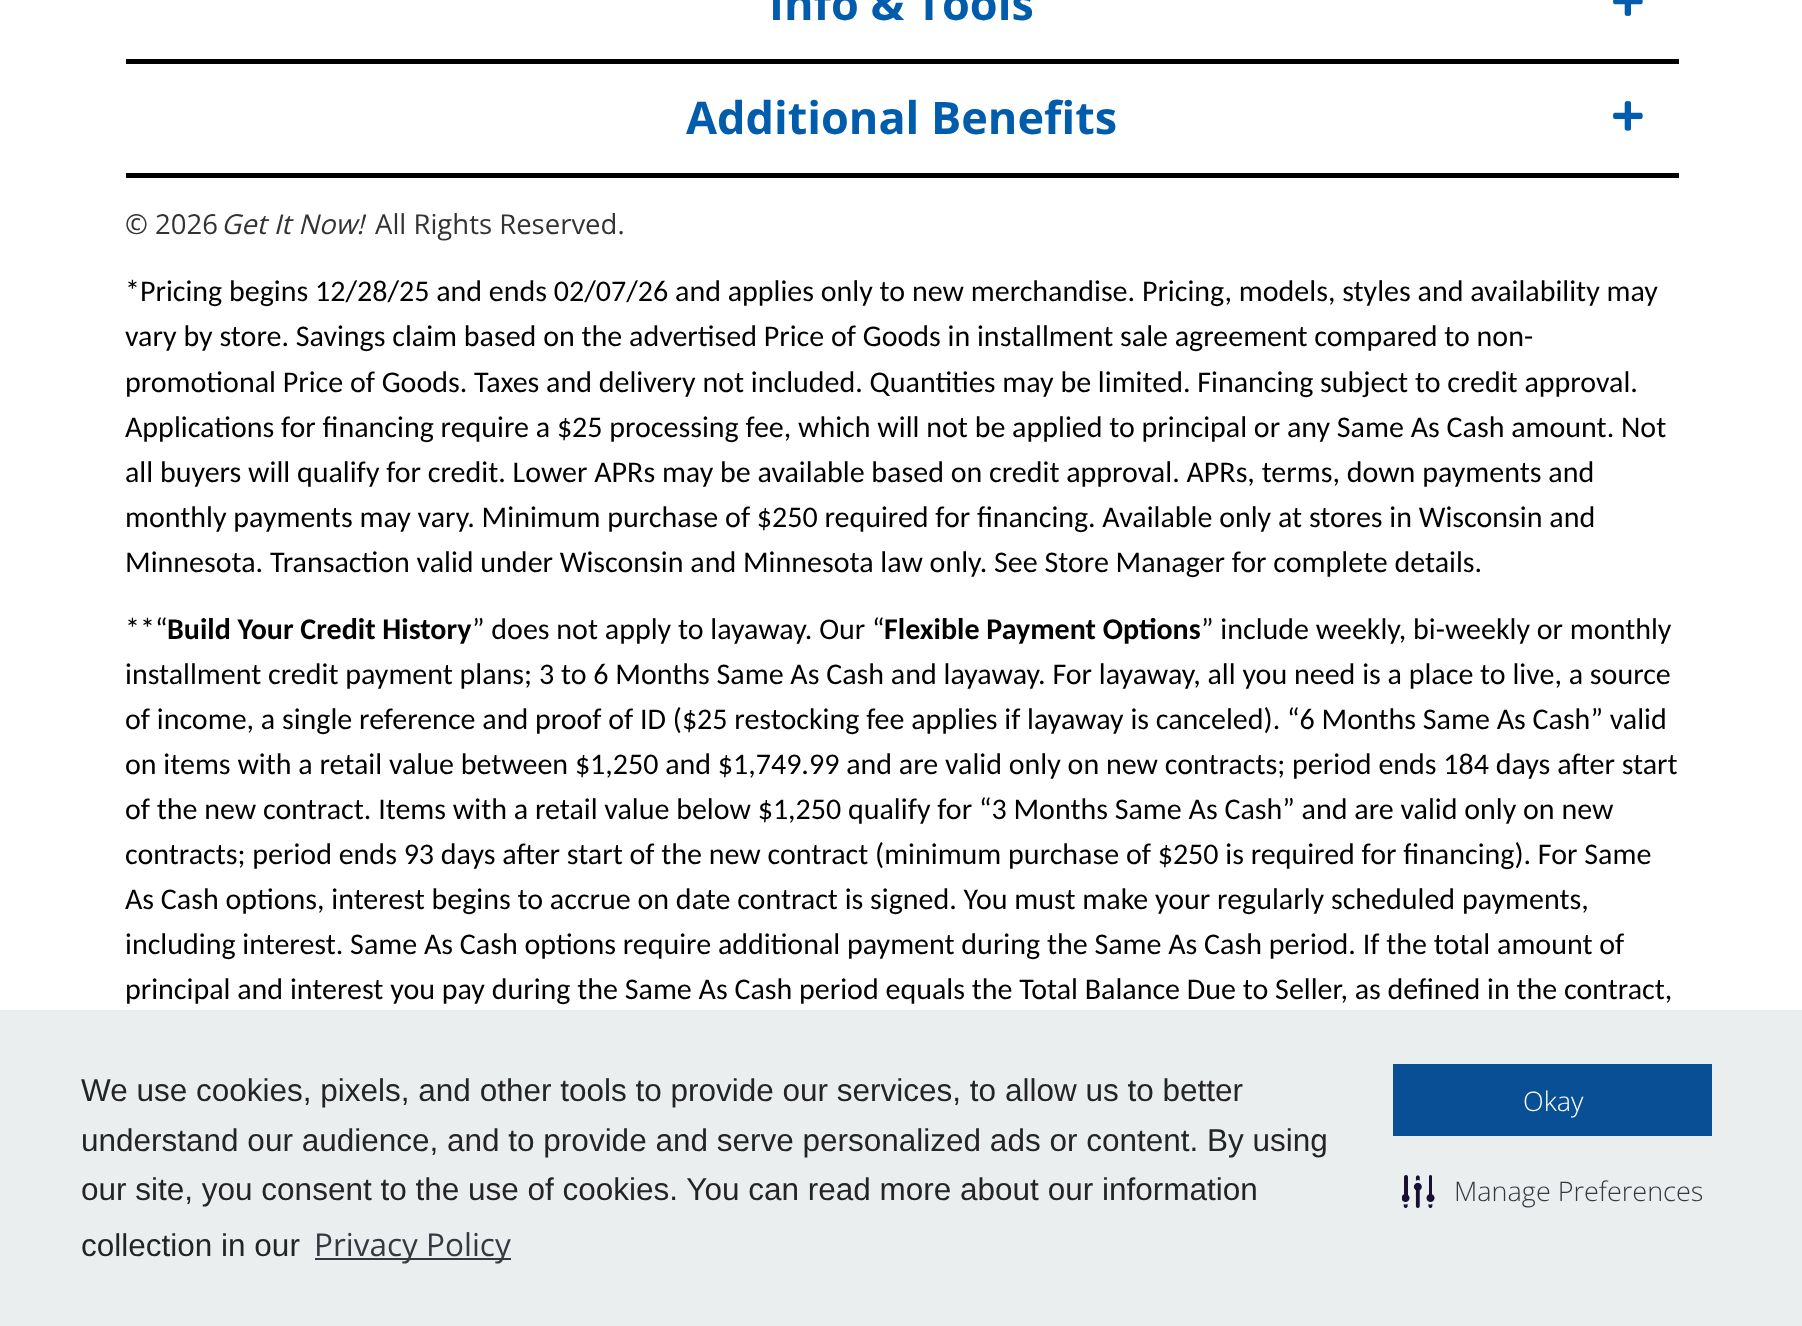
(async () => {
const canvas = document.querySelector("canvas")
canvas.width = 1802
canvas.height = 1326
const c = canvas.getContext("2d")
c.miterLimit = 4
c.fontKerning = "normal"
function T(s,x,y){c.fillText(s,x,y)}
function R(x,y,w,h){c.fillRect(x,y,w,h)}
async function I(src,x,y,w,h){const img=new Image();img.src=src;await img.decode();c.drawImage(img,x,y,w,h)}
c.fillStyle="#fff"
R(0,0,1802,1326)
c.fillStyle="#000"
R(126,59,1553,5)
c.font="bold 45px Open Sans"
c.fillStyle="#015cab"
T("Info & Tools",769,20)
await I("1.png",1613,0,30,16)
c.fillStyle="#000"
R(126,173,1553,5)
c.fillStyle="#015cab"
T("Additional Benefits",686,134)
await I("2.png",1613,101,30,30)
c.font="27.5px Open Sans"
c.fillStyle="#333"
T("© 2026",125,234)
c.font="italic 27.5px Open Sans"
T("Get It Now!",221,234)
c.font="27.5px Open Sans"
T("All Rights Reserved.",375,234)
c.font="30px Carlito"
c.fillStyle="#000"
T("*Pricing begins 12/28/25 and ends 02/07/26 and applies only to new merchandise. Pricing, models, styles and availability may",125,301)
T("vary by store. Savings claim based on the advertised Price of Goods in installment sale agreement compared to non-",125,346)
T("promotional Price of Goods. Taxes and delivery not included. Quantities may be limited. Financing subject to credit approval.",125,392)
T("Applications for financing require a $25 processing fee, which will not be applied to principal or any Same As Cash amount. Not",125,437)
T("all buyers will qualify for credit. Lower APRs may be available based on credit approval. APRs, terms, down payments and",125,482)
T("monthly payments may vary. Minimum purchase of $250 required for financing",125,527)
T(". Available only at stores in Wisconsin and",1088,527)
T("Minnesota. Transaction valid under Wisconsin and Minnesota law only. See Store Manager for complete details.",125,572)
T("**“",125,639)
c.font="bold 30px Carlito"
T("Build Your Credit History",167,639)
c.font="30px Carlito"
T("” does not apply to layaway. Our “",472,639)
c.font="bold 30px Carlito"
T("Flexible Payment Options",884,639)
c.font="30px Carlito"
T("” include weekly, bi-weekly or monthly",1201,639)
T("installment credit payment plans; 3 to 6 Months Same As Cash and layaway. For layaway, all you need is a place to live, a source",125,684)
T("of income, a single reference and proof of ID ($25 restocking fee applies if layaway is canceled). “6 Months Same As Cash” valid",125,729)
T("on items with a retail value between $1,250 and $1,749.99 and are valid only on new contracts; period ends 184 days after start",125,774)
T("of the new contract. Items with a retail value below $1,250 qualify for “3 Months Same As Cash” and are valid only on new",125,819)
T("contracts; period ends 93 days after start of the new contract (minimum purchase of $250 is required for financing). For Same",125,864)
T("As Cash options, interest begins to accrue on date contract is signed. You must make your regularly scheduled payments,",125,909)
T("including interest. Same As Cash options require additional payment during the Same As Cash period. If the total amount of",125,954)
T("principal and interest you pay during the Same As Cash period equals the Total Balance Due to Seller, as defined in the contract,",125,999)
c.fillStyle="#ebeeef"
R(0,1010,1802,316)
c.font="31.5px Liberation Sans"
c.fillStyle="#242424"
T("We use cookies, pixels, and other tools to provide our services, to allow us to better",81,1101)
T("understand our audience, and to provide and serve personalized ads or content. By using",81,1151)
T("our site, you consent to the use of cookies. You can read more about our information",81,1200)
T("collection in our",81,1256)
c.fillStyle="#35383e"
R(315,1258,196,2)
c.font="31.5px Open Sans"
T("Privacy Policy",314,1256)
c.fillStyle="#094f95"
R(1393,1064,319,72)
c.font="300 27px Open Sans"
c.fillStyle="#fff"
T("Okay",1523,1111)
await I("3.png",1402,1175,33,33)
c.fillStyle="#35383e"
T("Manage Preferences",1454,1201)
})()
